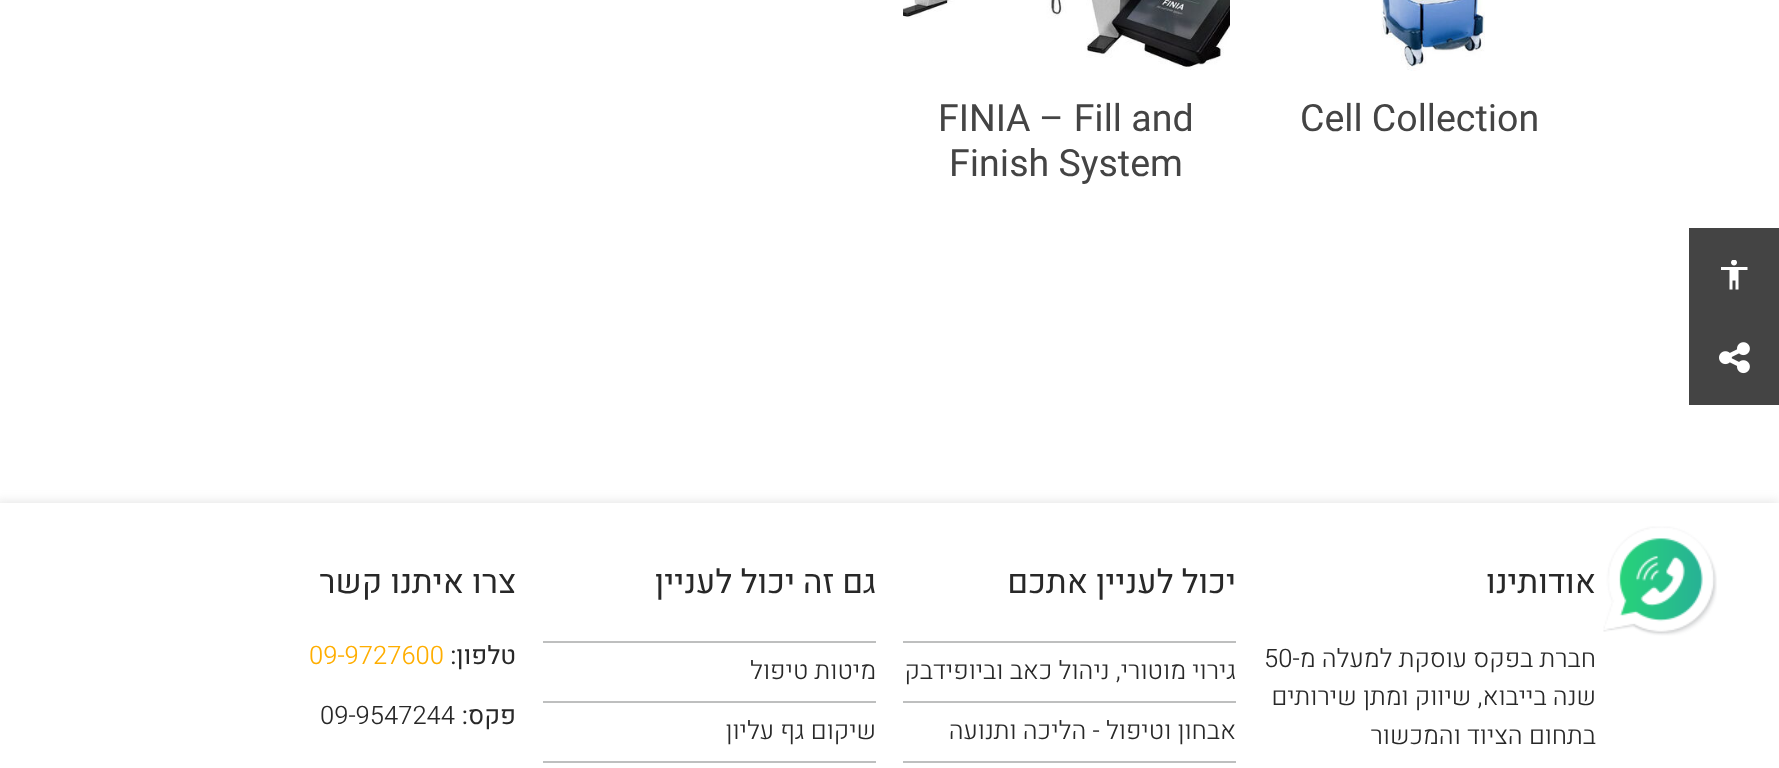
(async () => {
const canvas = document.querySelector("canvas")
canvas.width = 1779
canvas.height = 768
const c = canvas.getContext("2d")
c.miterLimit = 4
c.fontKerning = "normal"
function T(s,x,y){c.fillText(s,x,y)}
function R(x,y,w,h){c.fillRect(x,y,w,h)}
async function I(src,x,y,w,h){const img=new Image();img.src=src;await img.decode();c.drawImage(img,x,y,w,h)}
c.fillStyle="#fff"
R(0,0,1779,768)
await I("1.png",1381,0,104,71)
c.font="37.5px Heebo"
c.fillStyle="#444"
T("Cell Collection",1300,131)
await I("2.png",903,0,327,70)
T("FINIA – Fill and",938,131)
T("Finish System",949,176)
R(1689,228,90,177)
await I("3.png",1719,342,31,32)
await I("4.png",1721,260,27,30)
c.fillStyle="#c0c0c052"
c.filter="blur(4px)"
c.beginPath()
c.rect(-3,500,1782,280)
c.fill()
c.filter="none"
c.fillStyle="#fff"
R(0,503,1779,265)
await I("5.png",1603,526,114,110)
c.direction="rtl"
c.font="33px Heebo"
c.fillStyle="#282828"
T("אודותינו",1596,593)
c.font="300 25.5px Heebo"
T("חברת בפקס עוסקת למעלה מ-",1596,667)
c.direction="ltr"
T("50",1264,667)
c.direction="rtl"
T("שנה בייבוא, שיווק ומתן שירותים",1596,705)
T("בתחום הציוד והמכשור",1596,744)
c.font="33px Heebo"
T("יכול לעניין אתכם",1236,593)
c.fillStyle="#bebfbf"
R(903,641,333,2)
c.font="300 25.5px Heebo"
c.fillStyle="#282828"
T("גירוי מוטורי, ניהול כאב וביופידבק",1236,679)
c.fillStyle="#bebfbf"
R(903,701,333,2)
c.fillStyle="#282828"
T("אבחון וטיפול - הליכה ותנועה",1236,739)
c.fillStyle="#bebfbf"
R(903,761,333,2)
c.font="33px Heebo"
c.fillStyle="#282828"
T("גם זה יכול לעניין",876,593)
c.fillStyle="#bebfbf"
R(543,641,333,2)
c.font="300 25.5px Heebo"
c.fillStyle="#282828"
T("מיטות טיפול",876,679)
c.fillStyle="#bebfbf"
R(543,701,333,2)
c.fillStyle="#282828"
T("שיקום גף עליון",876,739)
c.fillStyle="#bebfbf"
R(543,761,333,2)
c.font="33px Heebo"
c.fillStyle="#282828"
T("צרו איתנו קשר",516,593)
c.font="25.5px Heebo"
T("טלפון:",516,664)
c.direction="ltr"
c.font="300 25.5px Heebo"
c.fillStyle="#ffae00"
T("09-9727600",309,664)
c.direction="rtl"
c.font="25.5px Heebo"
c.fillStyle="#282828"
T("פקס:",516,724)
c.direction="ltr"
c.font="300 25.5px Heebo"
T("09-9547244",320,724)
})()
